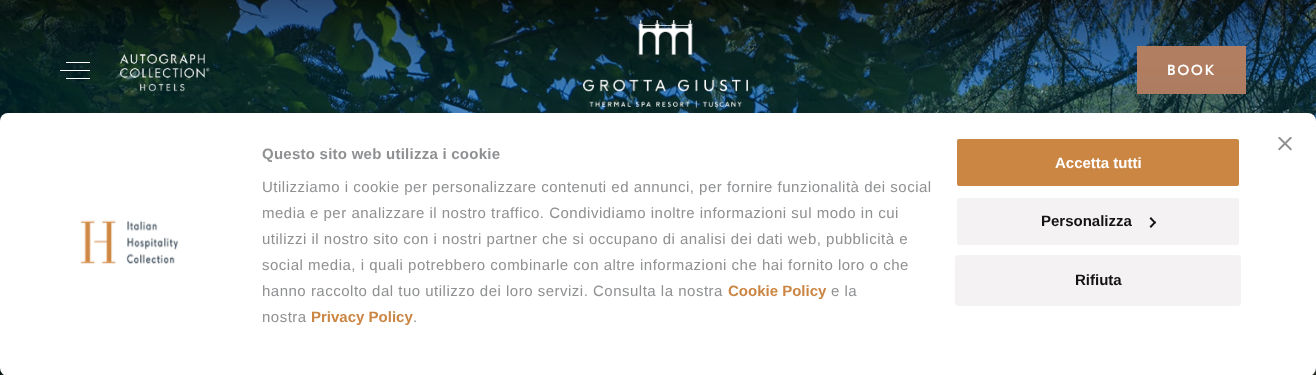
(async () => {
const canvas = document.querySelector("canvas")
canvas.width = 1316
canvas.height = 375
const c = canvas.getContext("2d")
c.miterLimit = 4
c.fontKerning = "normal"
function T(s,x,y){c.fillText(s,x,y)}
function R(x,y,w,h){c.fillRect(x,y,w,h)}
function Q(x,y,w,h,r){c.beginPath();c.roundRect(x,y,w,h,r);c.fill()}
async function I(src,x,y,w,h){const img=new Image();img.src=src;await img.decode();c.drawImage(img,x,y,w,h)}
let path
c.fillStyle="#fff"
R(0,0,1316,375)
await I("1.png",0,0,1316,375)
R(60,70,30,1)
R(66,62,24,1)
R(66,78,24,1)
await I("2.png",120,53,90,39)
await I("3.png",583,20,165,88)
c.fillStyle="#b17e62"
R(1137,46,109,48)
c.letterSpacing="2px"
c.font="bold 14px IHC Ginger"
c.fillStyle="#fff"
T("BOOK",1167,75)
c.fillStyle="#0000004d"
c.filter="blur(35px)"
c.beginPath()
c.roundRect(0,143,1316,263,8)
c.fill()
c.filter="none"
c.fillStyle="#fff"
Q(0,113,1316,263,8)
await I("4.png",1278,137,14,14)
await I("5.png",80,220,99,44)
c.letterSpacing="0.25px"
c.font="bold 15px Liberation Sans"
c.fillStyle="#8f9092"
T("Questo sito web utilizza i cookie",262,159)
c.letterSpacing="0.5px"
c.font="15px Liberation Sans"
T("Utilizziamo i cookie per personalizzare contenuti ed annunci, per fornire funzionalità dei social",262,192)
T("media e per analizzare il nostro traffico. Condividiamo inoltre informazioni sul modo in cui",262,218)
T("utilizzi il nostro sito con i nostri partner che si occupano di analisi dei dati web, pubblicità e",262,244)
T("social media, i quali potrebbero combinarle con altre informazioni che hai fornito loro o che",262,270)
T("hanno raccolto dal tuo utilizzo dei loro servizi. Consulta la nostra",262,296)
c.letterSpacing="0px"
c.font="bold 15px Liberation Sans"
c.fillStyle="#cb8644"
T("Cookie Policy",728,296)
c.letterSpacing="0.5px"
c.font="15px Liberation Sans"
c.fillStyle="#8f9092"
T("e la",831,296)
T("nostra",262,322)
c.letterSpacing="0px"
c.font="bold 15px Liberation Sans"
c.fillStyle="#cb8644"
T("Privacy Policy",311,322)
c.letterSpacing="0.5px"
c.font="15px Liberation Sans"
c.fillStyle="#8f9092"
T(".",413,322)
c.fillStyle="#cb8644"
c.beginPath()
c.roundRect(956,138,284,49,3)
c.fill()
c.strokeStyle="#fff"
c.lineWidth=2
c.stroke()
c.letterSpacing="0px"
c.font="bold 15px Liberation Sans"
c.fillStyle="#fff"
T("Accetta tutti",1055,168)
c.fillStyle="#f4f2f2"
c.beginPath()
c.roundRect(956,197,284,49,3)
c.fill()
c.stroke()
c.fillStyle="#141414"
T("Personalizza",1041,226)
path = new Path2D("M1151 217l5 5.5l-1 1.5l-5.5-5.5z")
c.fill(path)
path = new Path2D("M1155 221l1 1.5l-5 5.5l-1.5-1.5z")
c.fill(path)
c.fillStyle="#f4f2f2"
c.beginPath()
c.roundRect(956,256,284,49,3)
c.fill()
c.strokeStyle="#f4f2f2"
c.stroke()
c.fillStyle="#141414"
T("Rifiuta",1075,285)
})()
